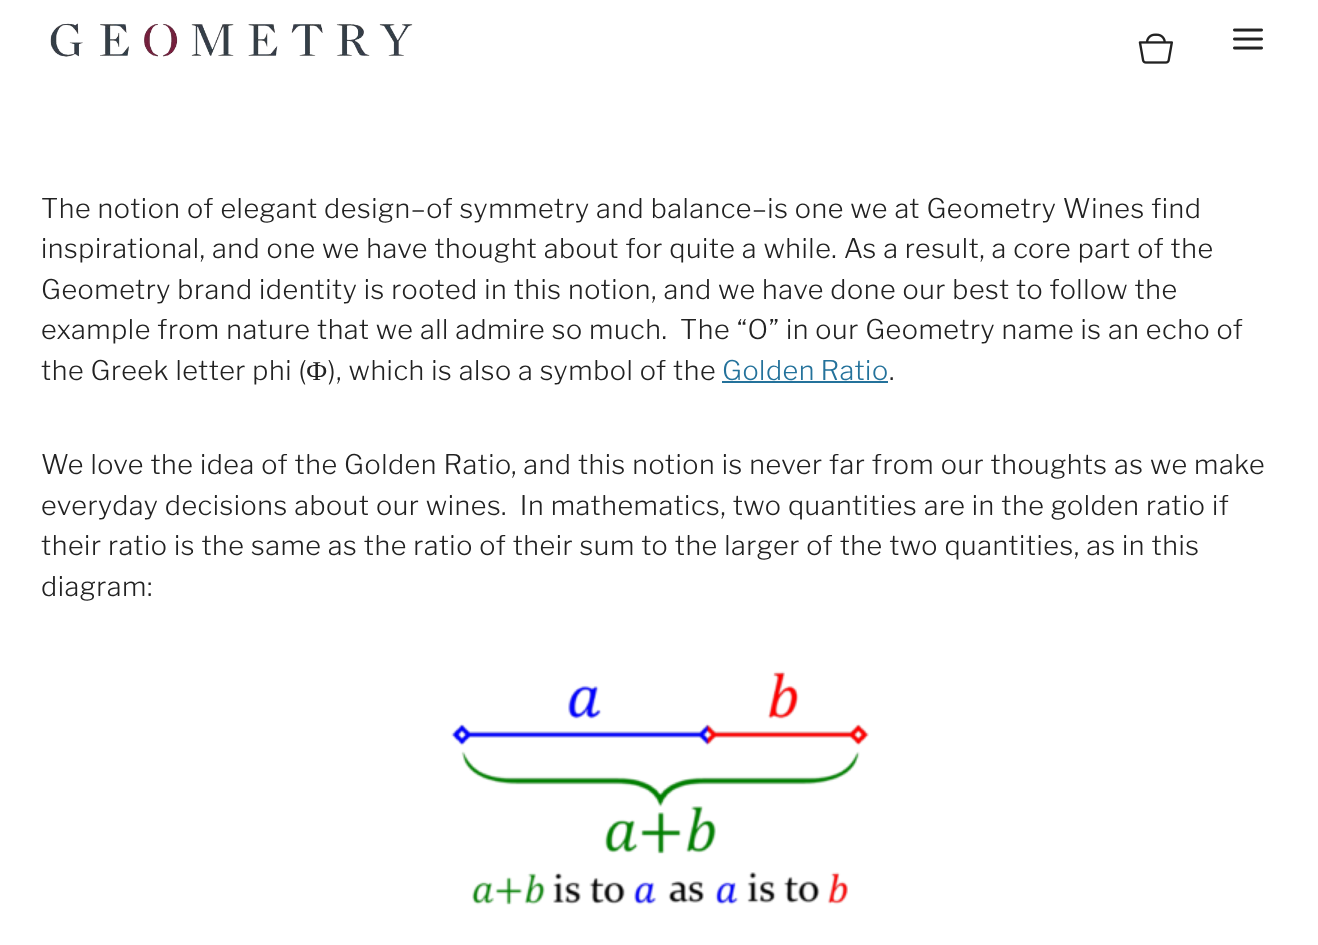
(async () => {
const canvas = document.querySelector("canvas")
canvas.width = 1318
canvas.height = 945
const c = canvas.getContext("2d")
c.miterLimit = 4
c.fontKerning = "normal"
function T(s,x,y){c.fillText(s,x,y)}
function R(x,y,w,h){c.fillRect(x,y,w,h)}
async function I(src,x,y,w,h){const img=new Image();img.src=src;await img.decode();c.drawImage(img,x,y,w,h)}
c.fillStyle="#fff"
R(0,0,1318,945)
await I("1.png",50,23,363,34)
await I("2.png",1138,33,35,31)
await I("3.png",1233,28,30,22)
c.letterSpacing="0.55px"
c.font="100 27px Libre Franklin"
c.fillStyle="#222"
T("The notion of elegant design–of symmetry and balance–is one we at Geometry Wines find",41,218)
T("inspirational, and one we have thought about for quite a while. As a result, a core part of the",41,258)
T("Geometry brand identity is rooted in this notion, and we have done our best to follow the",41,299)
T("example from nature that we all admire so much.  The “O” in our Geometry name is an echo of",41,339)
T("the Greek letter phi (",41,380)
c.font="27px Liberation Serif"
T("Ф",306,380)
c.font="100 27px Libre Franklin"
T("), which is also a symbol of the",328,380)
c.wordSpacing="-1px"
c.fillStyle="#24729b"
T("Golden Ratio",722,380)
R(722,381,166,2)
c.wordSpacing="0px"
c.fillStyle="#222"
T(".",889,380)
T("We love the idea of the Golden Ratio, and this notion is never far from our thoughts as we make",41,474)
T("everyday decisions about our wines.  In mathematics, two quantities are in the golden ratio if",41,515)
T("their ratio is the same as the ratio of their sum to the larger of the two quantities, as in this",41,555)
T("diagram:",41,596)
await I("4.png",451,671,418,234)
})()
